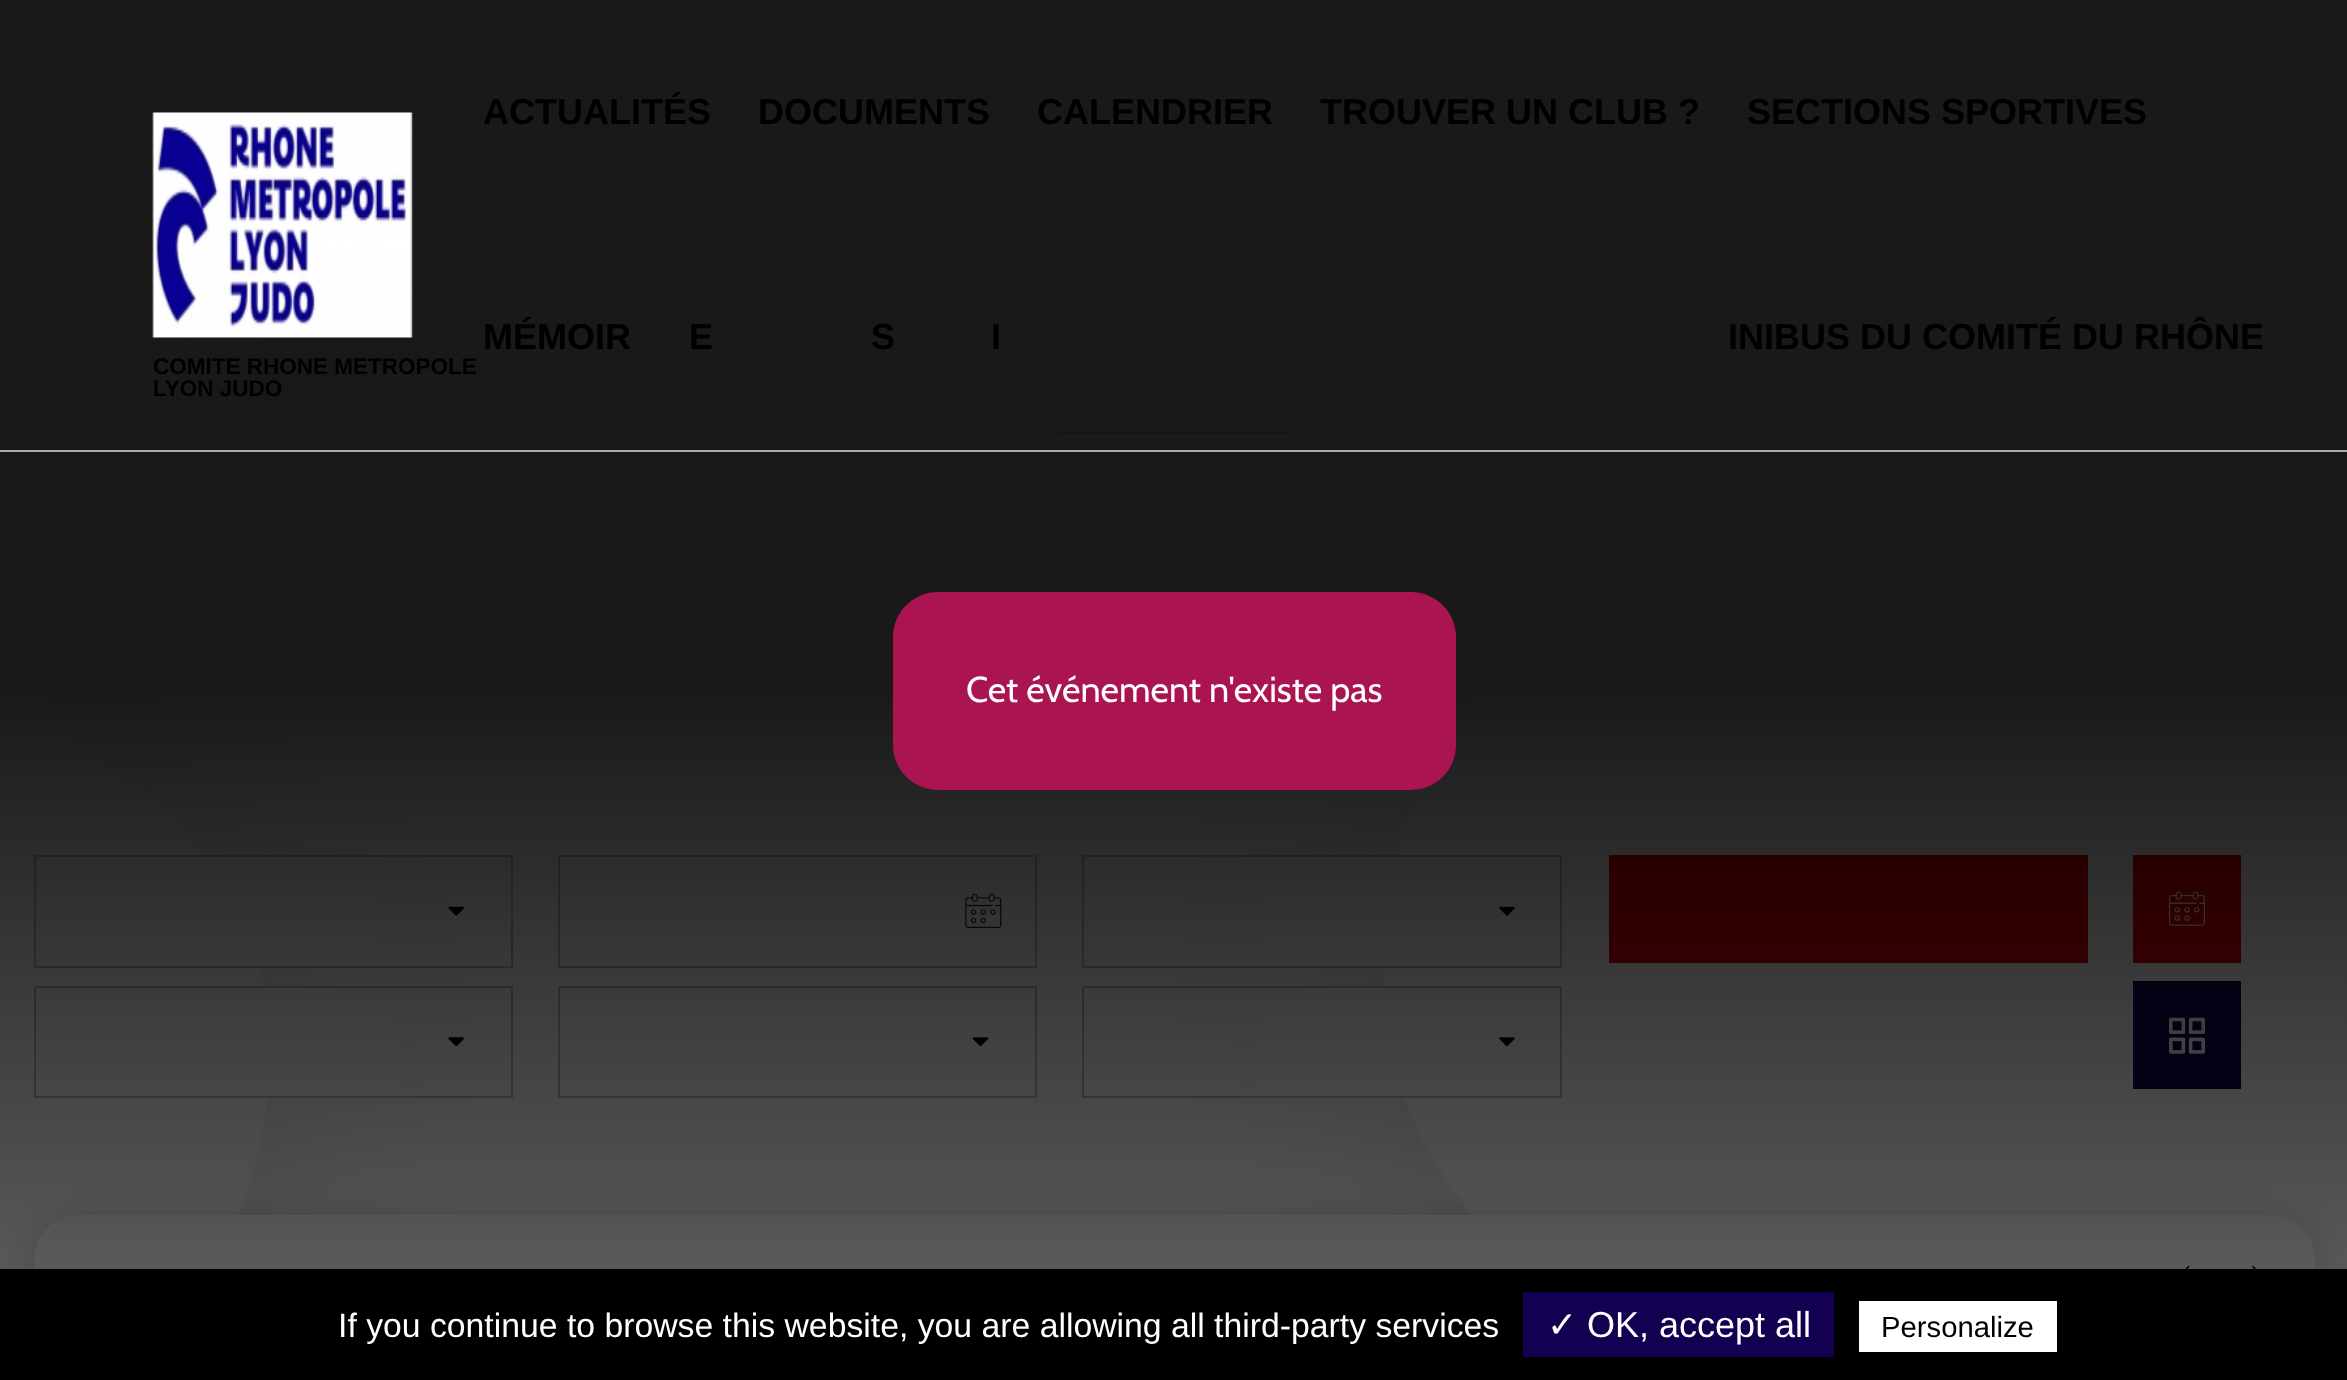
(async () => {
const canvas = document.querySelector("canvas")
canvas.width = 2347
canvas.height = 1380
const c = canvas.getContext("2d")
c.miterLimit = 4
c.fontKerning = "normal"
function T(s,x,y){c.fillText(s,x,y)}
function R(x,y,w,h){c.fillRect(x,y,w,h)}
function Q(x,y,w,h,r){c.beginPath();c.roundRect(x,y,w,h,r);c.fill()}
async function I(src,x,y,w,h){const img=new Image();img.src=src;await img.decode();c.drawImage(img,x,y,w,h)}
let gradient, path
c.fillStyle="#fff"
R(0,0,2347,1380)
await I("1.png",37,0,1796,1244)
c.fillStyle="#ccc"
R(1058,432,234,2)
c.fillStyle="#fff"
R(207,857,173,109)
c.strokeStyle="#bfbfbf"
c.lineWidth=2
c.strokeRect(35,856,477,111)
await I("3.png",448,906,16,10)
R(264,988,130,108)
c.strokeRect(35,987,477,110)
await I("4.png",448,1037,16,10)
c.strokeRect(559,856,477,111)
await I("5.png",965,893,37,35)
c.strokeRect(559,987,477,110)
await I("6.png",972,1037,17,10)
R(1259,857,138,109)
c.strokeRect(1083,856,478,111)
await I("7.png",1499,906,16,10)
R(1259,988,144,108)
c.strokeRect(1083,987,478,110)
await I("8.png",1499,1037,16,10)
c.fillStyle="#e90000"
R(1609,855,479,108)
R(2133,855,108,108)
await I("9.png",2169,891,36,35)
c.fillStyle="#140051"
R(2133,981,108,108)
await I("10.png",2169,1017,36,37)
c.fillStyle="#00000033"
c.filter="blur(22.5px)"
c.beginPath()
c.roundRect(34,1220,2281,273,45)
c.fill()
c.filter="none"
c.fillStyle="#fff"
Q(34,1215,2281,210,45)
c.save()
c.beginPath()
c.roundRect(34,1215,2281,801,45)
c.clip()
path = new Path2D("M34 1220h2281v160c0 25-20 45-45 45h-2191c-25 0-45-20-45-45z")
c.fill(path)
c.restore()
c.fillStyle="#1a1a1a"
path = new Path2D("M2176.5 1280l13 13.5l-1 1l-14.5-14.5l14.5-14.5l1 1.5z")
c.fill(path)
path = new Path2D("M2267.5 1280l-14.5 15l-1-1.5l13-13.5l-13-13l1-1.5z")
c.fill(path)
gradient = c.createLinearGradient(1175,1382,1175,0)
gradient.addColorStop(0,"#00000099")
gradient.addColorStop(.5,"#000000e6")
c.fillStyle = gradient
R(0,0,2347,1269)
c.fillStyle="#acacac"
R(0,450,2347,2)
c.font="bold 36px Liberation Sans"
c.fillStyle="#000"
T("ACTUALITÉS",483,124)
T("DOCUMENTS",758,124)
T("CALENDRIER",1037,124)
T("TROUVER UN CLUB ?",1320,124)
T("SECTIONS SPORTIVES",1747,124)
T("MÉMOIR",483,349)
T("E",689,349)
T("S",871,349)
T("I",991,349)
T("INIBUS DU COMITÉ DU RHÔNE",1728,349)
await I("2.png",152,112,261,226)
c.font="bold 22.5px Liberation Sans"
T("COMITE RHONE METROPOLE",153,374)
T("LYON JUDO",153,396)
c.fillStyle="#aa1451"
Q(893,592,563,198,45)
c.font="36px Cabin"
c.fillStyle="#fff"
T("Cet événement n'existe pas",966,702)
c.fillStyle="#000"
R(0,1269,2347,111)
c.font="33.75px Liberation Sans"
c.fillStyle="#fff"
T("If you continue to browse this website, you are allowing all third-party services",338,1337)
c.fillStyle="#140051"
R(1523,1292,311,65)
c.font="36px DejaVu Sans"
c.fillStyle="#fff"
T("✓",1547,1337)
c.font="36px Liberation Sans"
T("OK, accept all",1587,1337)
R(1859,1301,198,51)
c.font="29.25px Liberation Sans"
c.fillStyle="#000"
T("Personalize",1881,1337)
})()
